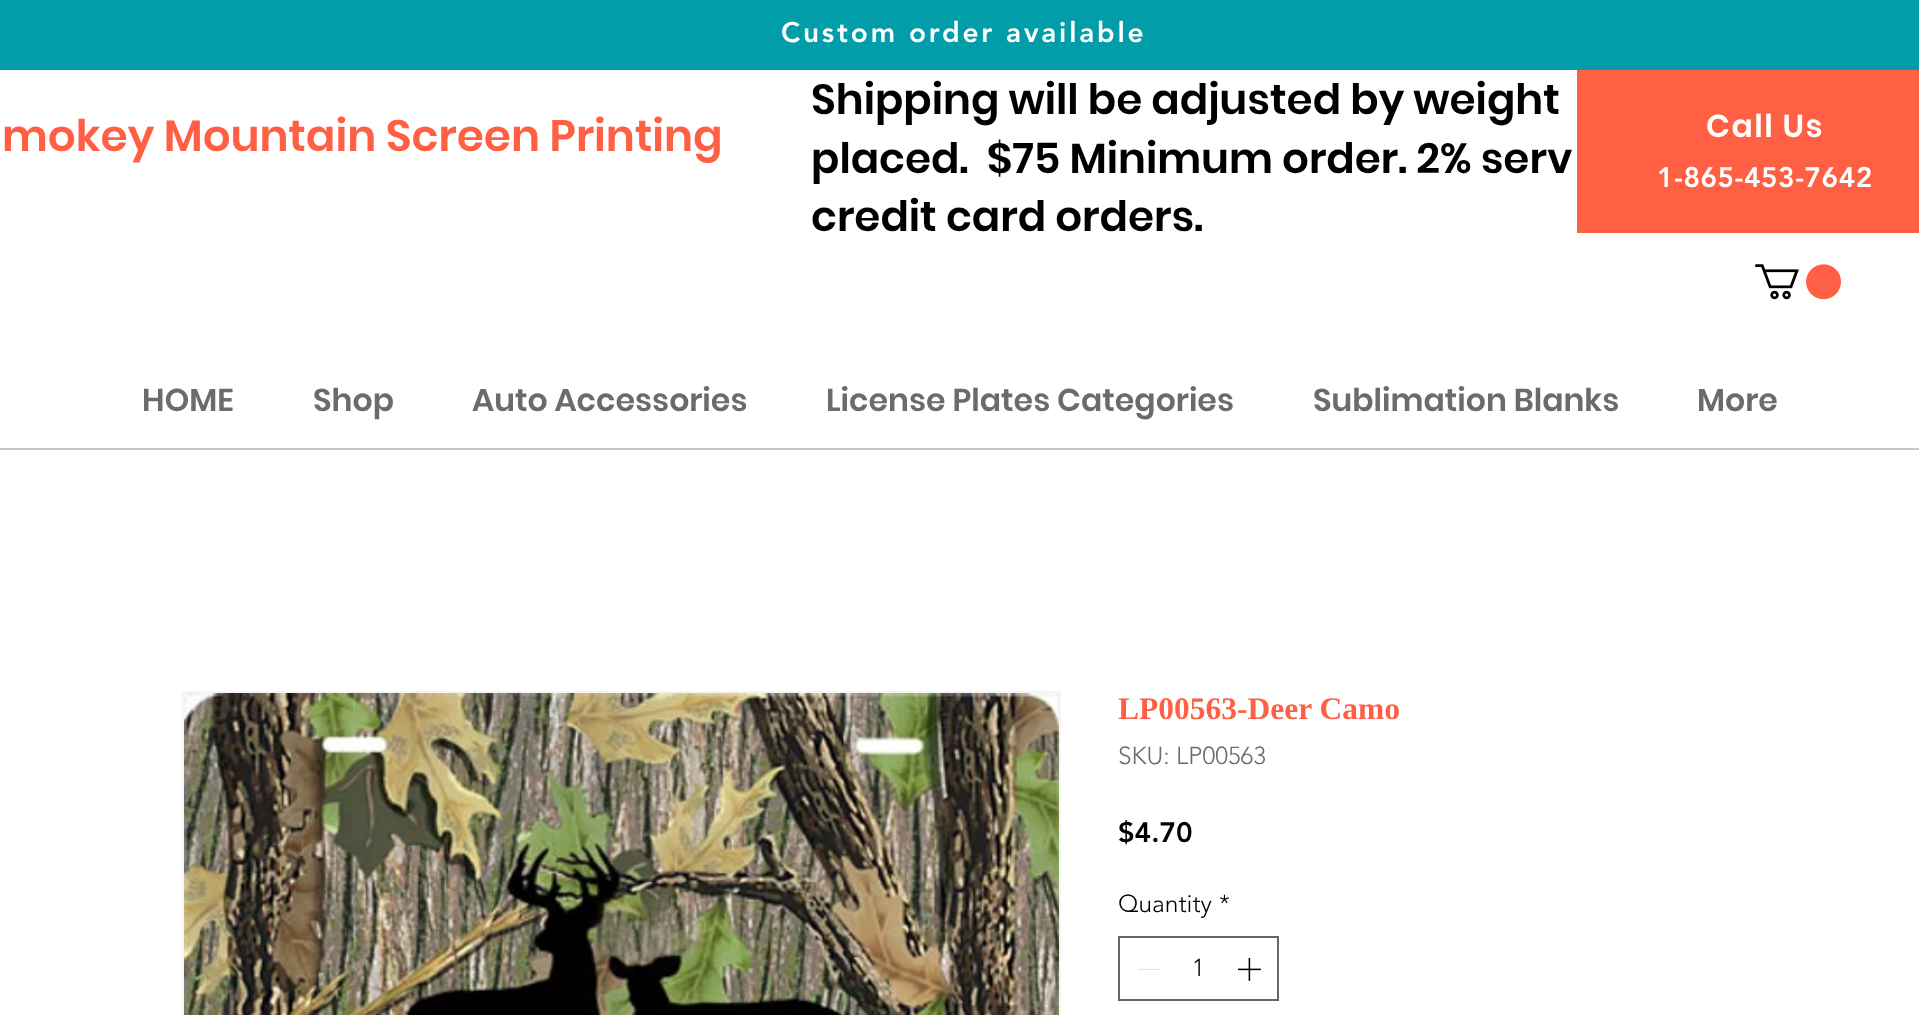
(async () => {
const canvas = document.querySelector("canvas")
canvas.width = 1919
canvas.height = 1015
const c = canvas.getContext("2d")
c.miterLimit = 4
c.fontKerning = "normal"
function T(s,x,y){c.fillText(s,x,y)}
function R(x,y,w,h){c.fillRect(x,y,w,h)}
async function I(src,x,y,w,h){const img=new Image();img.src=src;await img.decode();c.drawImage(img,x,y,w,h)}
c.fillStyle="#fff"
R(0,0,1919,1015)
c.fillStyle="#019eaa"
R(0,0,1919,70)
c.letterSpacing="2.8px"
c.font="900 28px 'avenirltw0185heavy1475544'"
c.fillStyle="#fff"
T("Custom order available",781,42)
c.letterSpacing="0px"
c.font="600 43.75px Poppins"
c.fillStyle="#ff5f42"
T("mokey Mountain Screen Printing",2,151)
c.font="600 42px Poppins"
c.fillStyle="#000"
T("Shipping will be adjusted by weight",811,114)
T("placed.  $75 Minimum order. 2% serv",811,173)
T("credit card orders.",811,231)
c.font="600 31.5px Poppins"
c.fillStyle="#6b6b6a"
T("HOME",142,411)
T("Shop",313,411)
T("Auto Accessories",472,411)
T("License Plates Categories",826,411)
T("Sublimation Blanks",1313,411)
T("More",1697,411)
c.fillStyle="#c7c7c7"
R(0,448,1919,2)
c.fillStyle="#ff5f42"
R(1577,70,342,163)
c.letterSpacing="1.5px"
c.fillStyle="#fff"
T("Call Us",1706,137)
c.letterSpacing="0.5px"
c.font="900 28px 'avenirltw0185heavy1475544'"
T("1-865-453-7642",1657,187)
await I("1.png",1755,264,86,36)
c.strokeStyle="#f5f5f5"
c.lineWidth=2
c.strokeRect(183,692,877,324)
await I("2.png",184,693,875,322)
c.letterSpacing="0px"
c.font="bold 31.5px Liberation Serif"
c.fillStyle="#ff5f42"
T("LP00563-Deer Camo",1118,719)
c.font="300 24.5px 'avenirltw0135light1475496'"
c.fillStyle="#6b6b6a"
T("SKU: LP00563",1118,764)
c.font="900 28px 'avenirltw0185heavy1475544'"
c.fillStyle="#000"
T("$4.70",1118,842)
c.font="300 24.5px 'avenirltw0135light1475496'"
T("Quantity",1118,912)
T("*",1219,912)
c.strokeStyle="#666"
c.strokeRect(1119,937,159,63)
c.fillStyle="#e3e3e3"
R(1138,969,23,1)
c.fillStyle="#000"
T("1",1192,976)
await I("3.png",1237,957,24,24)
})()
